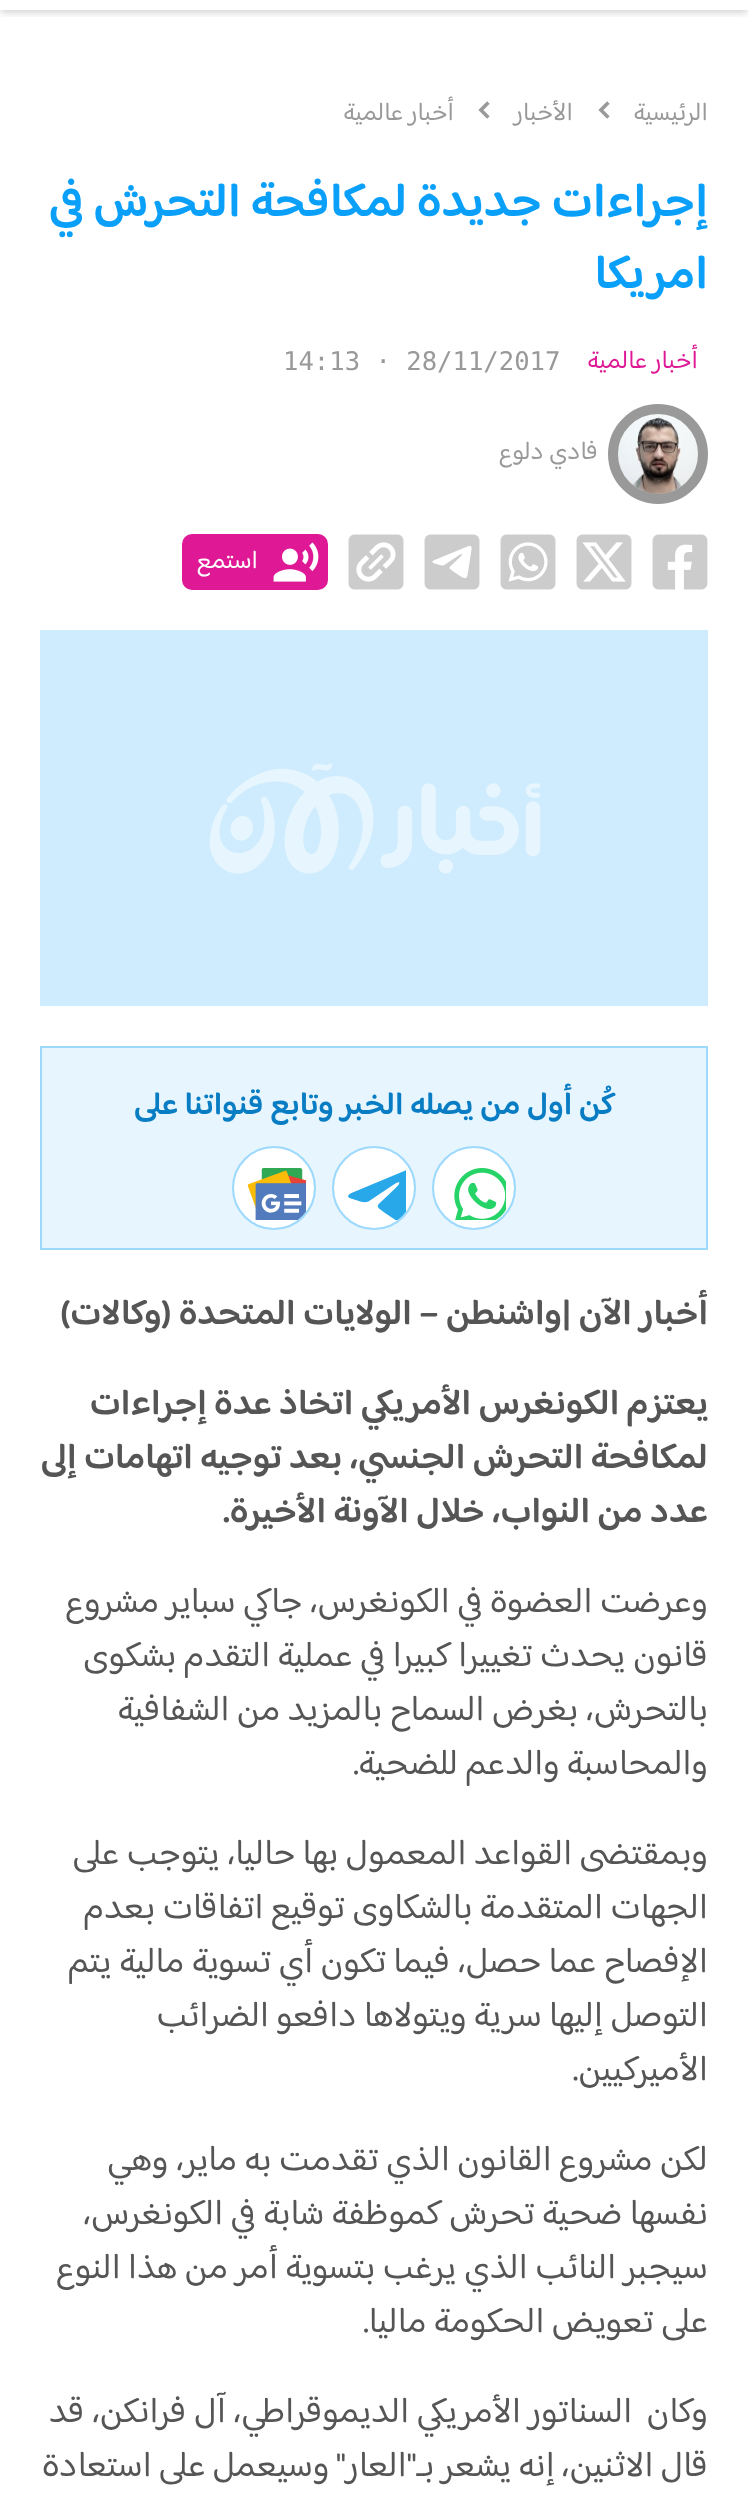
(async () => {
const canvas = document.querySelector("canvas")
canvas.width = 748
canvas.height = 2502
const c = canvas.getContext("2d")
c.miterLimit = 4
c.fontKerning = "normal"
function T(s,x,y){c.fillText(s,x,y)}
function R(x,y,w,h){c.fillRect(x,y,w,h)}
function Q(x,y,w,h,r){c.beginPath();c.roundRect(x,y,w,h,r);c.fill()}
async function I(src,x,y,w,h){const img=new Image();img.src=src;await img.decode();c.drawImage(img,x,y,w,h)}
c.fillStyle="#fff"
R(0,0,748,2502)
c.save()
c.beginPath()
c.rect(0,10,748,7)
c.clip()
c.fillStyle="#00000033"
c.filter="blur(4px)"
c.beginPath()
c.rect(0,-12,748,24)
c.fill()
c.filter="none"
c.restore()
c.direction="rtl"
c.font="25.6px 'Baloo Bhaijaan 2'"
c.fillStyle="#999"
T("الرئيسية",708,120)
await I("1.png",598,101,12,18)
T("الأخبار",573,120)
await I("1.png",478,101,12,18)
T("أخبار عالمية",454,120)
c.font="600 48px 'Baloo Bhaijaan 2'"
c.fillStyle="#0aa0fa"
T("إجراءات جديدة لمكافحة التحرش في",708,216)
T("امريكا",708,288)
c.font="25.6px 'Baloo Bhaijaan 2'"
c.fillStyle="#df1995"
T("أخبار عالمية",698,368)
c.direction="ltr"
c.font="25.6px DejaVu Sans Mono"
c.fillStyle="#999"
T("14:13 · 28/11/2017",283,370)
await I("2.png",618,414,80,80)
c.beginPath()
c.arc(658,454,45,0,7)
c.strokeStyle="#00000066"
c.lineWidth=10
c.stroke()
c.direction="rtl"
c.font="25.6px 'Baloo Bhaijaan 2'"
T("فادي دلوع",598,459)
await I("3.png",652,534,56,56)
await I("4.png",576,534,56,56)
await I("5.png",500,534,56,56)
await I("6.png",424,534,56,56)
await I("7.png",348,534,56,56)
c.fillStyle="#df1996"
Q(182,534,146,56,10)
await I("8.png",273,542,46,40)
c.fillStyle="#fff"
T("استمع",258,568)
c.fillStyle="#ceecfe"
R(40,630,668,376)
await I("9.png",209,763,332,111)
c.fillStyle="#e6f5fe"
c.beginPath()
c.rect(41,1047,666,202)
c.fill()
c.strokeStyle="#9dd9fd"
c.lineWidth=2
c.stroke()
c.font="600 32px 'Baloo Bhaijaan 2'"
c.fillStyle="#087dc3"
T("كُن أول من يصله الخبر وتابع قنواتنا على",615,1114)
c.fillStyle="#fff"
c.beginPath()
c.arc(474,1188,40,0,7)
c.fill()
await I("10.png",454,1168,52,52)
c.beginPath()
c.arc(474,1188,41,0,7)
c.stroke()
c.beginPath()
c.arc(374,1188,40,0,7)
c.fill()
await I("11.png",348,1170,58,50)
c.beginPath()
c.arc(374,1188,41,0,7)
c.stroke()
c.beginPath()
c.arc(274,1188,40,0,7)
c.fill()
await I("12.png",247,1168,59,52)
c.beginPath()
c.arc(274,1188,41,0,7)
c.stroke()
c.font="600 36px 'Baloo Bhaijaan 2'"
c.fillStyle="#555"
T("أخبار الآن |واشنطن – الولايات المتحدة (وكالات)",708,1324)
T("يعتزم الكونغرس الأمريكي اتخاذ عدة إجراءات",708,1414)
T("لمكافحة التحرش الجنسي، بعد توجيه اتهامات إلى",708,1468)
T("عدد من النواب، خلال الآونة الأخيرة.",708,1522)
c.font="36px 'Baloo Bhaijaan 2'"
T("وعرضت العضوة في الكونغرس، جاكي سباير مشروع",708,1612)
T("قانون يحدث تغييرا كبيرا في عملية التقدم بشكوى",708,1666)
T("بالتحرش، بغرض السماح بالمزيد من الشفافية",708,1720)
T("والمحاسبة والدعم للضحية.",708,1774)
T("وبمقتضى القواعد المعمول بها حاليا، يتوجب على",708,1864)
T("الجهات المتقدمة بالشكاوى توقيع اتفاقات بعدم",708,1918)
T("الإفصاح عما حصل، فيما تكون أي تسوية مالية يتم",708,1972)
T("التوصل إليها سرية ويتولاها دافعو الضرائب",708,2026)
T("الأميركيين.",708,2080)
T("لكن مشروع القانون الذي تقدمت به ماير، وهي",708,2170)
T("نفسها ضحية تحرش كموظفة شابة في الكونغرس،",708,2224)
T("سيجبر النائب الذي يرغب بتسوية أمر من هذا النوع",708,2278)
T("على تعويض الحكومة ماليا.",708,2332)
T("وكان  السناتور الأمريكي الديموقراطي، آل فرانكن، قد",708,2422)
c.wordSpacing="-0.5px"
T("قال الاثنين، إنه يشعر بـ\"العار\" وسيعمل على استعادة",708,2476)
})()
